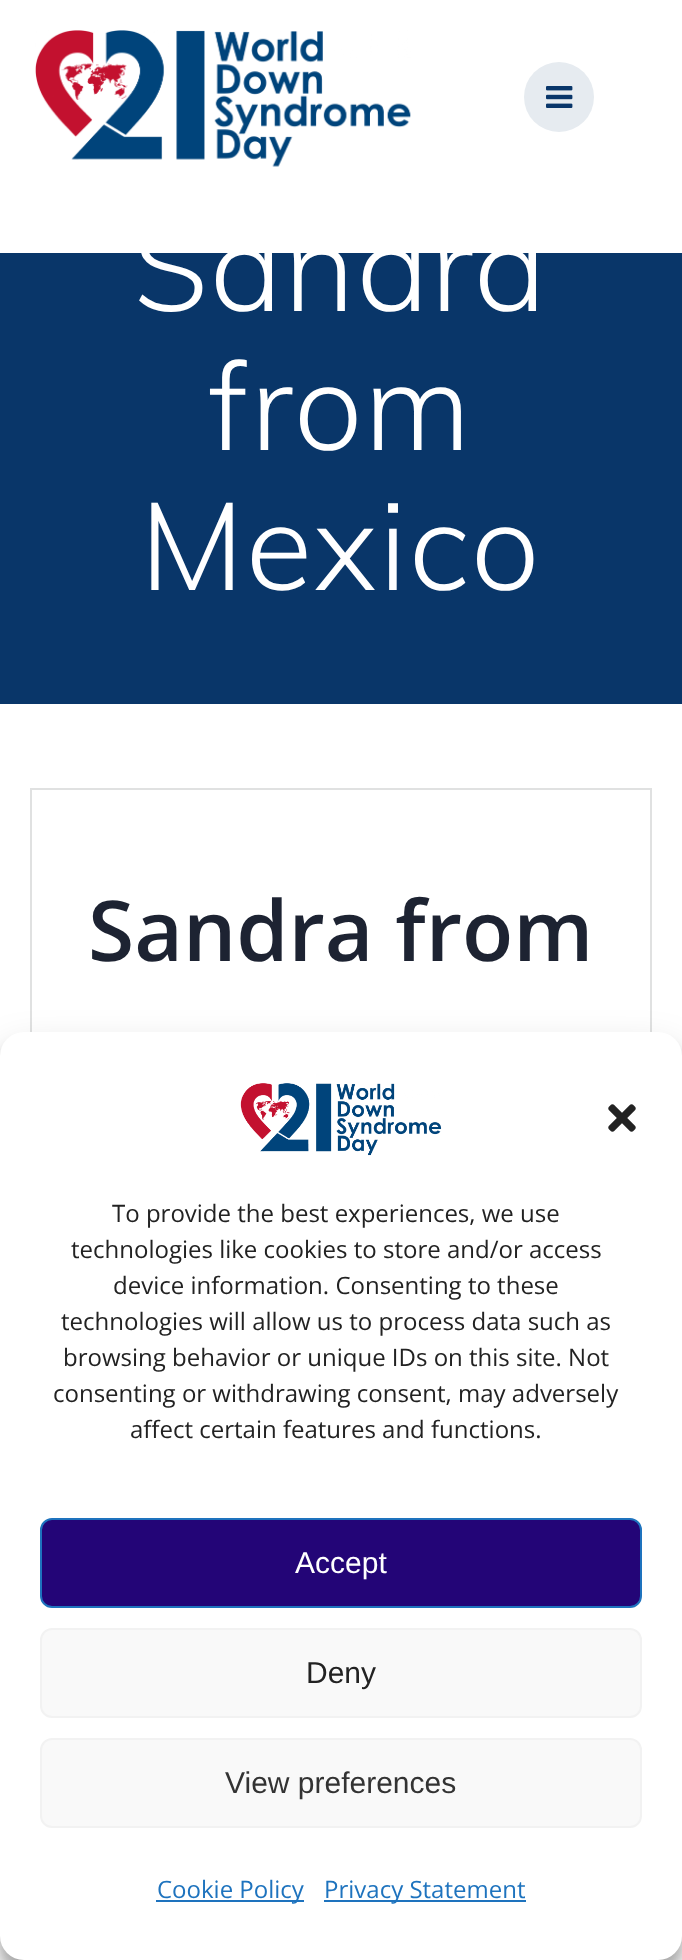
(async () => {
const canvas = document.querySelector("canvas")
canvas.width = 682
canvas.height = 1960
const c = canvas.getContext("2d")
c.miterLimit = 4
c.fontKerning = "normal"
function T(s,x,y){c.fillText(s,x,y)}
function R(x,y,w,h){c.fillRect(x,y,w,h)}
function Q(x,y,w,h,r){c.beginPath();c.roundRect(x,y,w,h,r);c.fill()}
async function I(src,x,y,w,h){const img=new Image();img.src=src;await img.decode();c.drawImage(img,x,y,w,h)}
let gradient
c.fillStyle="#fff"
R(0,0,682,1960)
await I("1.png",35,30,376,137)
c.fillStyle="#e6ebf0"
c.beginPath()
c.arc(559,97,35,0,7)
c.fill()
await I("2.png",546,86,27,22)
gradient = c.createLinearGradient(341,704,341,0)
gradient.addColorStop(0,"#093669")
gradient.addColorStop(.64,"#093669")
gradient.addColorStop(.64,"#fff")
gradient.addColorStop(1,"#fff")
c.fillStyle = gradient
R(0,253,682,451)
c.letterSpacing="1.75px"
c.font="300 122.5px Muli"
c.fillStyle="#fff"
T("Sandra",133,311)
T("from",209,450)
T("Mexico",140,590)
c.strokeStyle="#e0e1e1"
c.lineWidth=2
c.strokeRect(31,789,620,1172)
c.letterSpacing="0px"
c.font="600 84px Open Sans"
c.fillStyle="#1d2332"
T("Sandra from",88,961)
c.fillStyle="#0000003b"
c.filter="blur(6px)"
c.beginPath()
c.roundRect(0,1044,682,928,24)
c.fill()
c.filter="none"
c.fillStyle="#00000030"
c.filter="blur(20px)"
c.beginPath()
c.roundRect(0,1052,682,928,24)
c.fill()
c.filter="none"
c.fillStyle="#fff"
Q(0,1032,682,928,24)
await I("3.png",240,1083,202,73)
await I("4.png",608,1104,28,28)
c.font="24px Open Sans"
c.fillStyle="#222"
T("To provide the best experiences, we use",112,1222)
T("technologies like cookies to store and/or access",71,1258)
T("device information. Consenting to these",113,1294)
T("technologies will allow us to process data such as",61,1330)
T("browsing behavior or unique IDs on this site. Not",63,1366)
T("consenting or withdrawing consent, may adversely",53,1402)
T("affect certain features and functions.",130,1438)
c.fillStyle="#230577"
c.beginPath()
c.roundRect(41,1519,600,88,11)
c.fill()
c.strokeStyle="#1e73be"
c.stroke()
c.font="30px Liberation Sans"
c.fillStyle="#fff"
T("Accept",295,1573)
c.fillStyle="#f9f9f9"
c.beginPath()
c.roundRect(41,1629,600,88,11)
c.fill()
c.strokeStyle="#f2f2f2"
c.stroke()
c.fillStyle="#222"
T("Deny",306,1683)
c.fillStyle="#f9f9f9"
c.beginPath()
c.roundRect(41,1739,600,88,11)
c.fill()
c.stroke()
c.fillStyle="#333"
T("View preferences",225,1793)
c.fillStyle="#1e73be"
R(156,1900,148,2)
c.font="24px Open Sans"
T("Cookie Policy",157,1898)
R(324,1900,202,2)
T("Privacy Statement",324,1898)
})()
